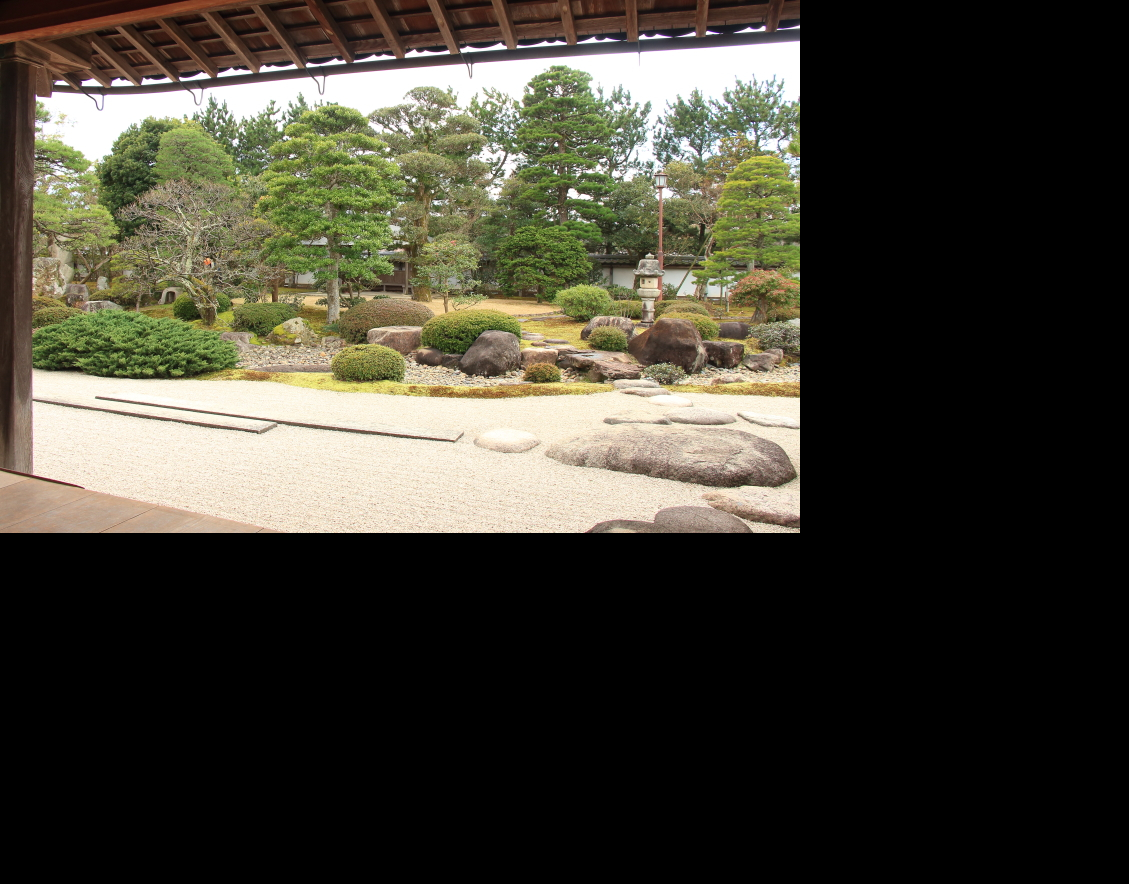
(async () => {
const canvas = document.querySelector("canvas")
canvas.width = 1129
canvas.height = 884
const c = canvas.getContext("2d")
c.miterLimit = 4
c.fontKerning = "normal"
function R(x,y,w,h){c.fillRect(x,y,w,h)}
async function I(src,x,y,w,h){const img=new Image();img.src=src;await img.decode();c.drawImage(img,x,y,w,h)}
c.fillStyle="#000"
R(0,0,1129,884)
await I("1.png",0,0,800,533)
})()
